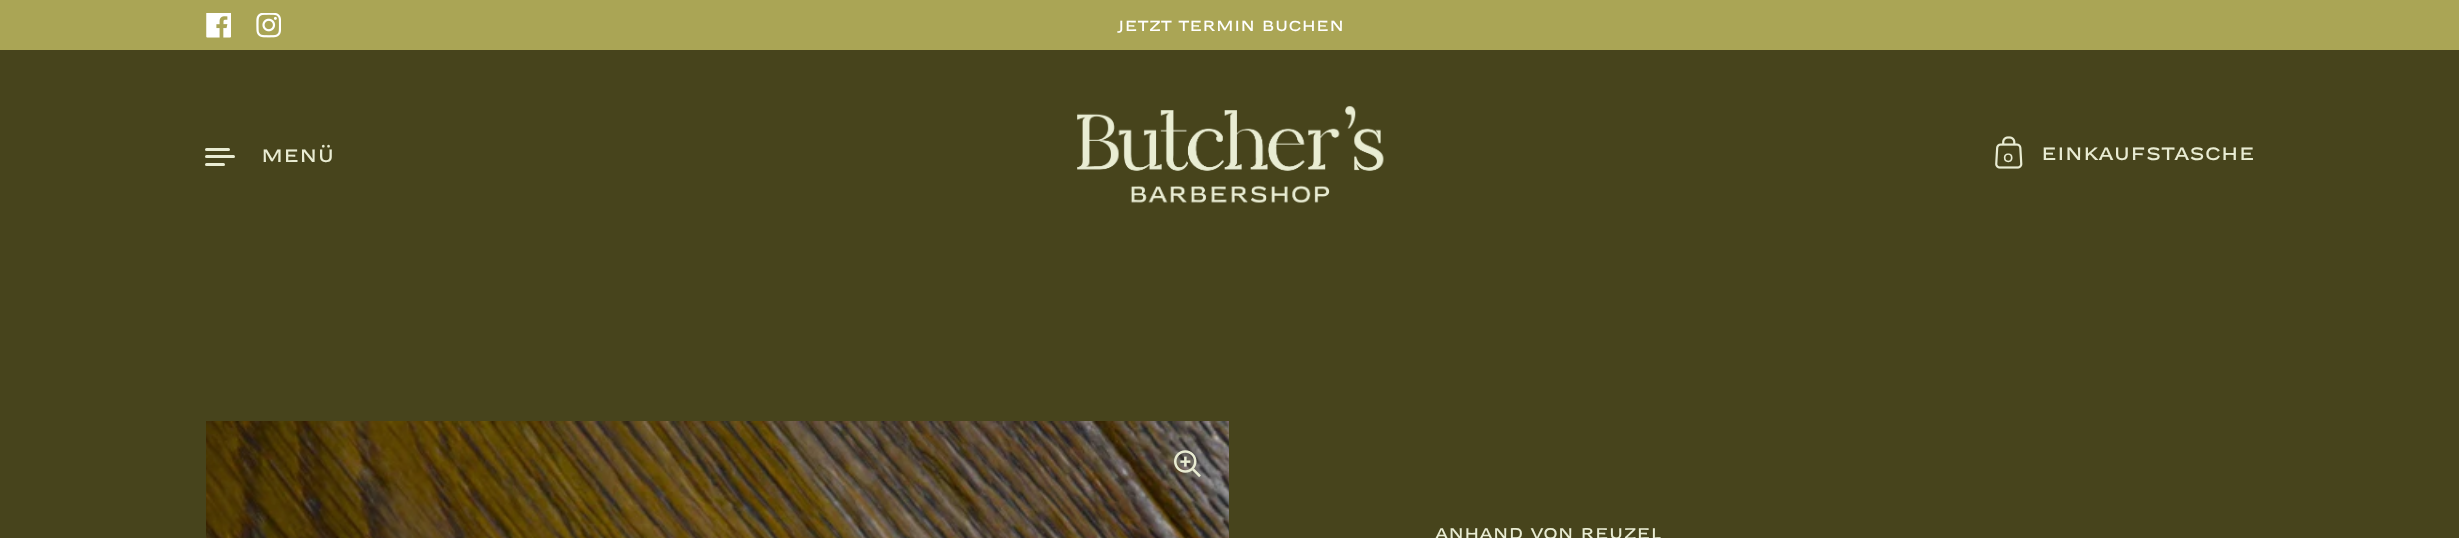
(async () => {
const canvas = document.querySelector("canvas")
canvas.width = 2459
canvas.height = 538
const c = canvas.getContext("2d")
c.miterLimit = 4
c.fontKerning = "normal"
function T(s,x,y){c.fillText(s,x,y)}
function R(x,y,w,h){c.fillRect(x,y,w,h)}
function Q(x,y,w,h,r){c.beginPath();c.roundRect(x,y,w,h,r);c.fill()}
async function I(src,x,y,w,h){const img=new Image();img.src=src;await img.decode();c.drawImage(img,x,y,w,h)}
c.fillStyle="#47441c"
R(0,0,2459,538)
c.fillStyle="#aaa555"
R(0,0,2459,50)
await I("1.png",206,13,25,25)
await I("2.png",256,13,25,25)
c.font="500 14.5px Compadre"
c.fillStyle="#fff"
T("JETZT TERMIN BUCHEN",1117,31)
c.fillStyle="#e9ecd3"
Q(205,148,25,3,1.5)
Q(205,155,30,3,1.5)
Q(205,163,20,3,1.5)
c.font="500 17.75px Compadre"
T("Menü",261,162)
await I("3.png",1077,106,307,97)
await I("4.png",1995,136,28,33)
c.font="500 12px Compadre"
T("0",2003,162)
c.font="500 17.75px Compadre"
T("Einkaufstasche",2041,160)
await I("5.png",206,421,1023,117)
await I("6.png",1174,450,27,28)
c.font="500 15.5px Compadre"
T("anhand von Reuzel",1435,539)
})()
